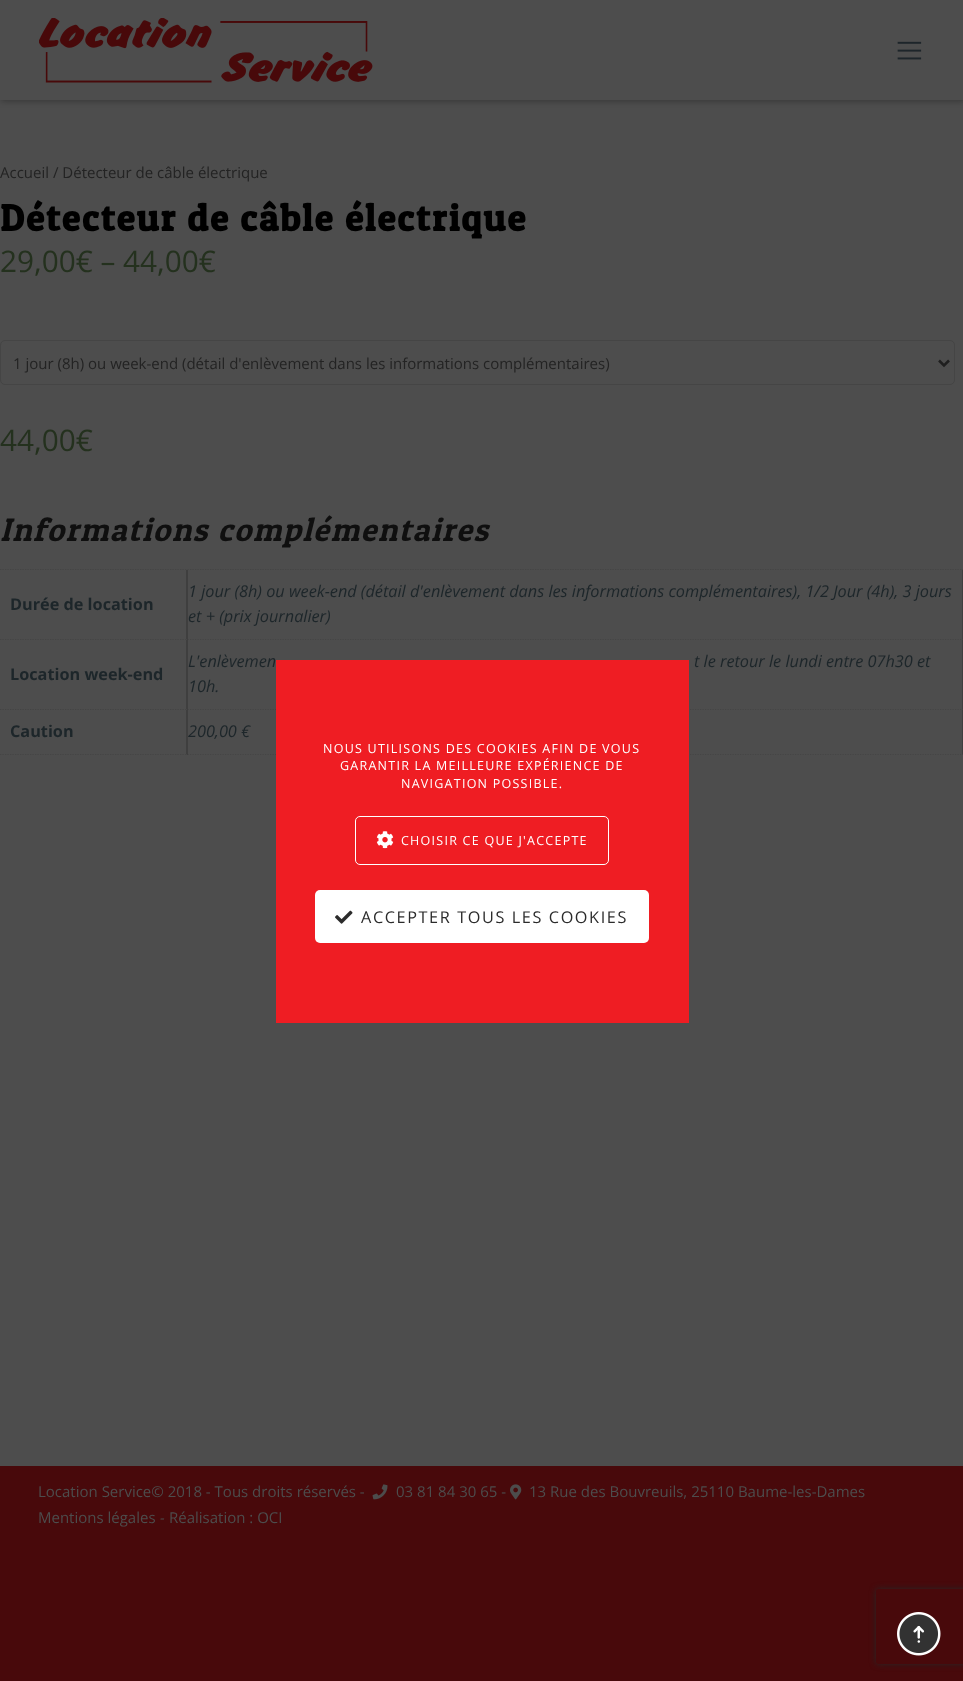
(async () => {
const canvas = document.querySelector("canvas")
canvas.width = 963
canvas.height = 1681
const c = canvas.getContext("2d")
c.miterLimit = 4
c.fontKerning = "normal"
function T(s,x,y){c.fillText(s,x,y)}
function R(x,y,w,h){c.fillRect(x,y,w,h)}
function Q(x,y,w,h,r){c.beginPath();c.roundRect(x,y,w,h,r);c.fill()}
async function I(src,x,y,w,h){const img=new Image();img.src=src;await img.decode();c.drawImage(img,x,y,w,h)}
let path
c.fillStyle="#48090b"
R(0,0,963,1681)
c.fillStyle="#4d4d4d"
R(0,100,963,1366)
c.fillStyle="#0000004d"
c.filter="blur(3px)"
c.beginPath()
c.rect(1,1,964,100)
c.fill()
c.filter="none"
c.fillStyle="#4d4d4d"
R(0,0,963,100)
await I("1.png",39,18,334,65)
await I("2.png",897,41,25,19)
c.font="15px Open Sans"
c.fillStyle="#232323"
T("Accueil / Détecteur de câble électrique",0,178)
c.letterSpacing="1.9px"
c.font="bold 37.5px Patua One"
c.fillStyle="#000"
T("Détecteur de câble électrique",0,231)
c.letterSpacing="0px"
c.font="29.75px Open Sans"
c.fillStyle="#24311e"
T("29,00€ – 44,00€",0,272)
c.beginPath()
c.roundRect(.5,340.5,954,44,4.5)
c.strokeStyle="#454545"
c.stroke()
path = new Path2D("M939 360.5l5 5l5-5")
c.strokeStyle="#1f1f1f"
c.lineWidth=2.5
c.stroke(path)
c.font="15px Open Sans"
c.fillStyle="#232323"
T("1 jour (8h) ou week-end (détail d'enlèvement dans les informations complémentaires)",13,369)
c.font="29.75px Open Sans"
c.fillStyle="#24311e"
T("44,00€",0,451)
c.letterSpacing="1.6px"
c.font="italic 32.5px Patua One"
c.fillStyle="#0f0f0f"
T("Informations complémentaires",0,541)
path = new Path2D("M0 569.5h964")
c.strokeStyle="#454545"
c.lineWidth=1.2
c.setLineDash([1.25,1.25])
c.stroke(path)
c.fillStyle="#3f3f3f"
path = new Path2D("M188 570v70l-2-1v-69z")
c.fill(path)
path = new Path2D("M0 639.5h187.5")
c.stroke(path)
c.letterSpacing="0px"
c.font="bold 16.25px Open Sans"
c.fillStyle="#1d262a"
T("Durée de location",10,610)
c.fillStyle="#3f3f3f"
path = new Path2D("M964 570v70l-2-1v-69z")
c.fill(path)
path = new Path2D("M187.5 639.5h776.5")
c.strokeStyle="#0000001a"
c.stroke(path)
c.font="italic 16.25px Open Sans"
c.fillStyle="#1d262a"
T("1 jour (8h) ou week-end (détail d'enlèvement dans les informations complémentaires), 1/2 Jour (4h), 3 jours",188,597)
T("et + (prix journalier)",188,622)
c.fillStyle="#3f3f3f"
path = new Path2D("M188 640v70l-2-1v-69z")
c.fill(path)
path = new Path2D("M0 709.5h187.5")
c.strokeStyle="#444"
c.stroke(path)
c.font="bold 16.25px Open Sans"
c.fillStyle="#1d262a"
T("Location week-end",10,680)
c.fillStyle="#3f3f3f"
path = new Path2D("M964 640v70l-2-1v-69z")
c.fill(path)
path = new Path2D("M187.5 709.5h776.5")
c.strokeStyle="#0000001a"
c.stroke(path)
c.font="italic 16.25px Open Sans"
c.fillStyle="#1d262a"
T("L'enlèvemen",188,667)
T("t le retour le lundi entre 07h30 et",694,667)
T("10h.",188,692)
c.fillStyle="#3f3f3f"
path = new Path2D("M188 710v45l-2-1v-44z")
c.fill(path)
path = new Path2D("M0 754.5h187.5")
c.strokeStyle="#454545"
c.stroke(path)
c.font="bold 16.25px Open Sans"
c.fillStyle="#1d262a"
T("Caution",10,737)
c.fillStyle="#3f3f3f"
path = new Path2D("M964 710v45l-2-1v-44z")
c.fill(path)
path = new Path2D("M187.5 754.5h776.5")
c.strokeStyle="#0000001a"
c.stroke(path)
c.font="italic 16.25px Open Sans"
c.fillStyle="#1d262a"
T("200,00 €",188,737)
c.font="15px Open Sans"
c.fillStyle="#4d4d4d"
T("Location Service© 2018 - Tous droits réservés -",38,1497)
await I("3.png",372,1484,16,16)
T("03 81 84 30 65 -",396,1497)
await I("4.png",510,1484,12,16)
T("13 Rue des Bouvreuils, 25110 Baume-les-Dames",529,1497)
T("Mentions légales",38,1523)
c.font="italic 15px Open Sans"
T("-",160,1523)
c.font="15px Open Sans"
T("Réalisation : OCI",169,1523)
c.save()
path = new Path2D("M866 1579h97v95h-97zm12.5 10h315c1.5 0 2.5 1 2.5 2.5v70c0 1.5-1 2.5-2.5 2.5h-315c-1.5 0-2.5-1-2.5-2.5v-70c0-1.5 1-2.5 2.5-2.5z")
c.clip(path,"evenodd")
c.fillStyle="#262626"
c.filter="blur(3px)"
c.beginPath()
c.roundRect(876,1589,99,75,2.5)
c.fill()
c.filter="none"
c.restore()
await I("5.png",897,1612,44,44)
c.fillStyle="#ef1d23"
R(276,660,413,363)
c.letterSpacing="1.25px"
c.font="12.5px Open Sans"
c.fillStyle="#fff"
T("NOUS UTILISONS DES COOKIES AFIN DE VOUS",323,753)
T("GARANTIR LA MEILLEURE EXPÉRIENCE DE",340,770)
T("NAVIGATION POSSIBLE.",401,788)
c.beginPath()
c.roundRect(355.5,816.5,253,48,4.5)
c.strokeStyle="#fff"
c.lineWidth=1
c.setLineDash([])
c.stroke()
await I("6.png",376,831,18,18)
T("CHOISIR CE QUE J'ACCEPTE",401,845)
Q(315,890,334,53,5)
await I("7.png",335,910,18,14)
c.letterSpacing="1.6px"
c.font="16.25px Open Sans"
c.fillStyle="#2b2b2b"
T("ACCEPTER TOUS LES COOKIES",361,923)
})()
